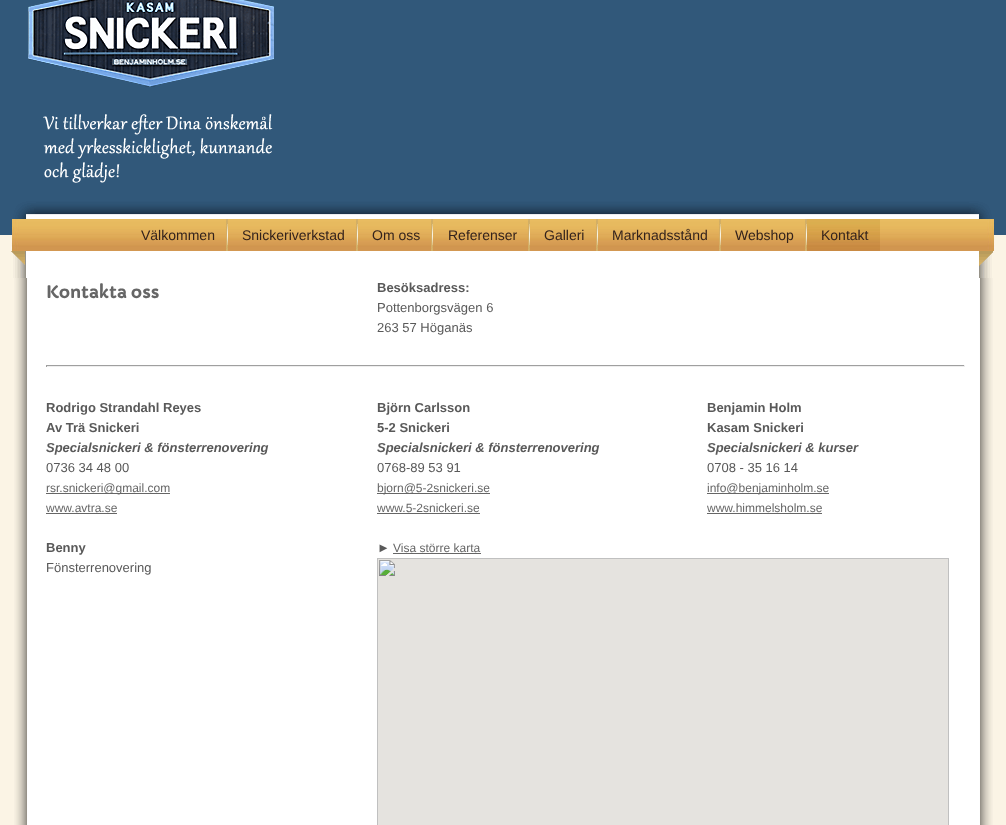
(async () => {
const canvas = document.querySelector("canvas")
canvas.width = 1006
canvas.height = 825
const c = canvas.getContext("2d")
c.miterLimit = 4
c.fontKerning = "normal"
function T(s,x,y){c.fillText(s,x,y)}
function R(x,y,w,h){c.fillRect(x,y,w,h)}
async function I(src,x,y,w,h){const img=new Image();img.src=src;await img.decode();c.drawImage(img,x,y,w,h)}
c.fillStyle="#fbf4e5"
R(0,0,1006,825)
c.fillStyle="#31587a"
R(0,0,1006,235)
await I("1.png",11,0,982,278)
await I("2.png",11,219,984,32)
c.font="14px Liberation Sans"
c.fillStyle="#33221c"
T("Välkommen",141,240)
await I("3.png",226,219,2,32)
T("Snickeriverkstad",242,240)
await I("3.png",356,219,2,32)
T("Om oss",372,240)
await I("3.png",431,219,2,32)
T("Referenser",448,240)
await I("3.png",528,219,2,32)
T("Galleri",544,240)
await I("3.png",596,219,2,32)
T("Marknadsstånd",612,240)
await I("3.png",719,219,2,32)
T("Webshop",735,240)
await I("3.png",805,219,2,32)
await I("4.png",807,219,73,32)
T("Kontakt",821,240)
await I("5.png",14,278,979,547)
c.font="bold 17px Capriola"
c.fillStyle="#666"
T("Kontakta oss",46,298)
c.font="bold 13px Liberation Sans"
c.fillStyle="#595959"
T("Besöksadress:",377,292)
c.font="13px Liberation Sans"
T("Pottenborgsvägen 6",377,312)
T("263 57 Höganäs",377,332)
c.fillStyle="#9f9f9f"
R(46,365,919,1)
c.fillStyle="#eee"
R(964,365,1,2)
R(46,366,919,1)
c.fillStyle="#9f9f9f"
R(46,365,1,2)
c.font="bold 13px Liberation Sans"
c.fillStyle="#595959"
T("Rodrigo Strandahl Reyes",46,412)
T("Av Trä Snickeri",46,432)
c.font="italic bold 13px Liberation Sans"
T("Specialsnickeri & fönsterrenovering",46,452)
c.font="13px Liberation Sans"
T("0736 34 48 00",46,472)
c.fillStyle="#666"
R(46,493,124,1)
c.font="12px Liberation Sans"
T("rsr.snickeri@gmail.com",46,492)
T("www.avtra.se",46,512)
R(46,513,71,1)
c.font="bold 13px Liberation Sans"
c.fillStyle="#595959"
T("Benny",46,552)
c.font="13px Liberation Sans"
T("Fönsterrenovering",46,572)
c.font="bold 13px Liberation Sans"
T("Björn Carlsson",377,412)
T("5-2 Snickeri",377,432)
c.font="italic bold 13px Liberation Sans"
T("Specialsnickeri & fönsterrenovering",377,452)
c.font="13px Liberation Sans"
T("0768-89 53 91",377,472)
c.fillStyle="#666"
R(377,493,113,1)
c.font="12px Liberation Sans"
T("bjorn@5-2snickeri.se",377,492)
T("www.5-2snickeri.se",377,512)
R(377,513,103,1)
c.font="bold 13px Liberation Sans"
c.fillStyle="#595959"
T("Benjamin Holm",707,412)
T("Kasam Snickeri",707,432)
c.font="italic bold 13px Liberation Sans"
T("Specialsnickeri & kurser",707,452)
c.font="13px Liberation Sans"
T("0708 - 35 16 14",707,472)
c.fillStyle="#666"
R(707,493,122,1)
c.font="12px Liberation Sans"
T("info@benjaminholm.se",707,492)
T("www.himmelsholm.se",707,512)
R(707,513,115,1)
c.font="13px Liberation Sans"
c.fillStyle="#595959"
T("►",377,552)
c.font="12px Liberation Sans"
c.fillStyle="#666"
T("Visa större karta",393,552)
R(393,553,88,1)
await I("6.png",377,558,572,267)
})()
